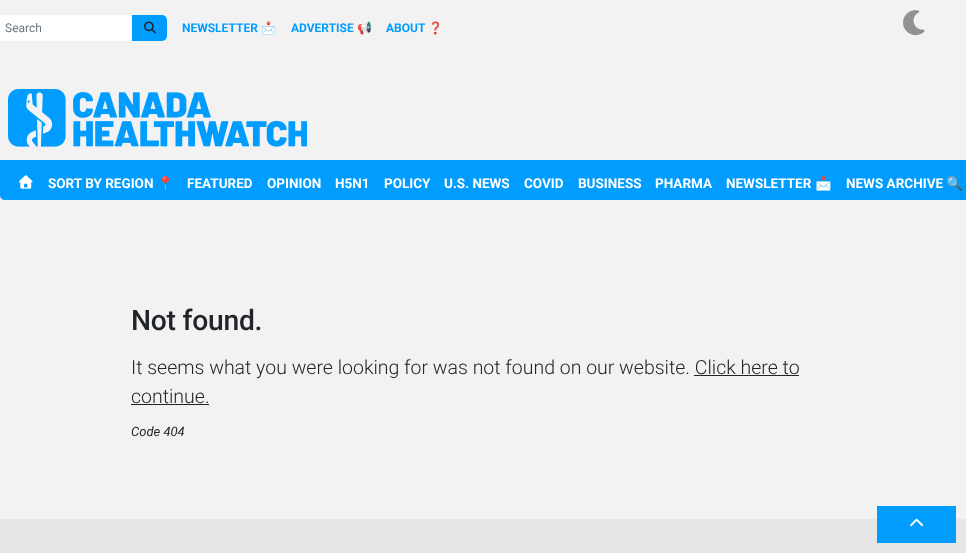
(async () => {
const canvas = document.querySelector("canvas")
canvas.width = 966
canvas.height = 553
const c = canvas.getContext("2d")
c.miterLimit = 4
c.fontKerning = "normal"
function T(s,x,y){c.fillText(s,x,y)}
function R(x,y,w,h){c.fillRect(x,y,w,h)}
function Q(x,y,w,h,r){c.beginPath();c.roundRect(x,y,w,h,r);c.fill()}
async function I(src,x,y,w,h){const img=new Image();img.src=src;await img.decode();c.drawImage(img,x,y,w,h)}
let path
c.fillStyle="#f2f2f2"
R(0,0,966,553)
await I("1.png",903,10,22,26)
await I("2.png",8,89,299,58)
c.fillStyle="#009dff"
path = new Path2D("M0 160h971v35c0 3-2 5-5 5h-961c-3 0-5-2-5-5z")
c.fill(path)
c.fillStyle="#fff"
Q(-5,15,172,26,5)
c.font="12px Roboto"
c.fillStyle="#6c757d"
T("Search",5,32)
c.fillStyle="#009dff"
c.beginPath()
c.roundRect(132,15,35,26,[0,5,5,0])
c.fill()
await I("3.png",144,21,12,13)
c.font="bold 12px Roboto"
T("NEWSLETTER",182,32)
c.font="bold 12px Noto Color Emoji"
T("📩",261,32)
c.font="bold 12px Roboto"
T("ADVERTISE",291,32)
c.font="bold 12px Noto Color Emoji"
T("📢",357,32)
c.font="bold 12px Roboto"
T("ABOUT",386,32)
c.font="bold 12px Noto Color Emoji"
T("❓",428,32)
await I("4.png",19,175,14,14)
c.font="bold 13.5px Roboto"
c.fillStyle="#fff"
T("SORT BY REGION",48,188)
c.font="bold 13.5px Noto Color Emoji"
T("📍",157,188)
c.font="bold 13.5px Roboto"
T("FEATURED",187,188)
T("OPINION",267,188)
T("H5N1",335,188)
T("POLICY",384,188)
T("U.S. NEWS",444,188)
T("COVID",524,188)
T("BUSINESS",578,188)
T("PHARMA",655,188)
T("NEWSLETTER",726,188)
c.font="bold 13.5px Noto Color Emoji"
T("📩",815,188)
c.font="bold 13.5px Roboto"
T("NEWS ARCHIVE",846,188)
c.font="bold 13.5px Noto Color Emoji"
T("🔍",946,188)
c.letterSpacing="-0.25px"
c.font="500 28.25px Roboto"
c.fillStyle="#212529"
T("Not found.",131,330)
c.letterSpacing="0px"
c.font="300 19.5px Roboto"
T("It seems what you were looking for was not found on our website. Click here to",131,374)
T("continue.",131,403)
R(694,375,105,1)
R(131,404,78,1)
c.font="italic 13px Roboto"
T("Code 404",131,436)
c.fillStyle="#e6e6e6"
R(0,519,966,34)
c.fillStyle="#009dff"
R(877,506,79,37)
await I("5.png",910,518,14,9)
})()
